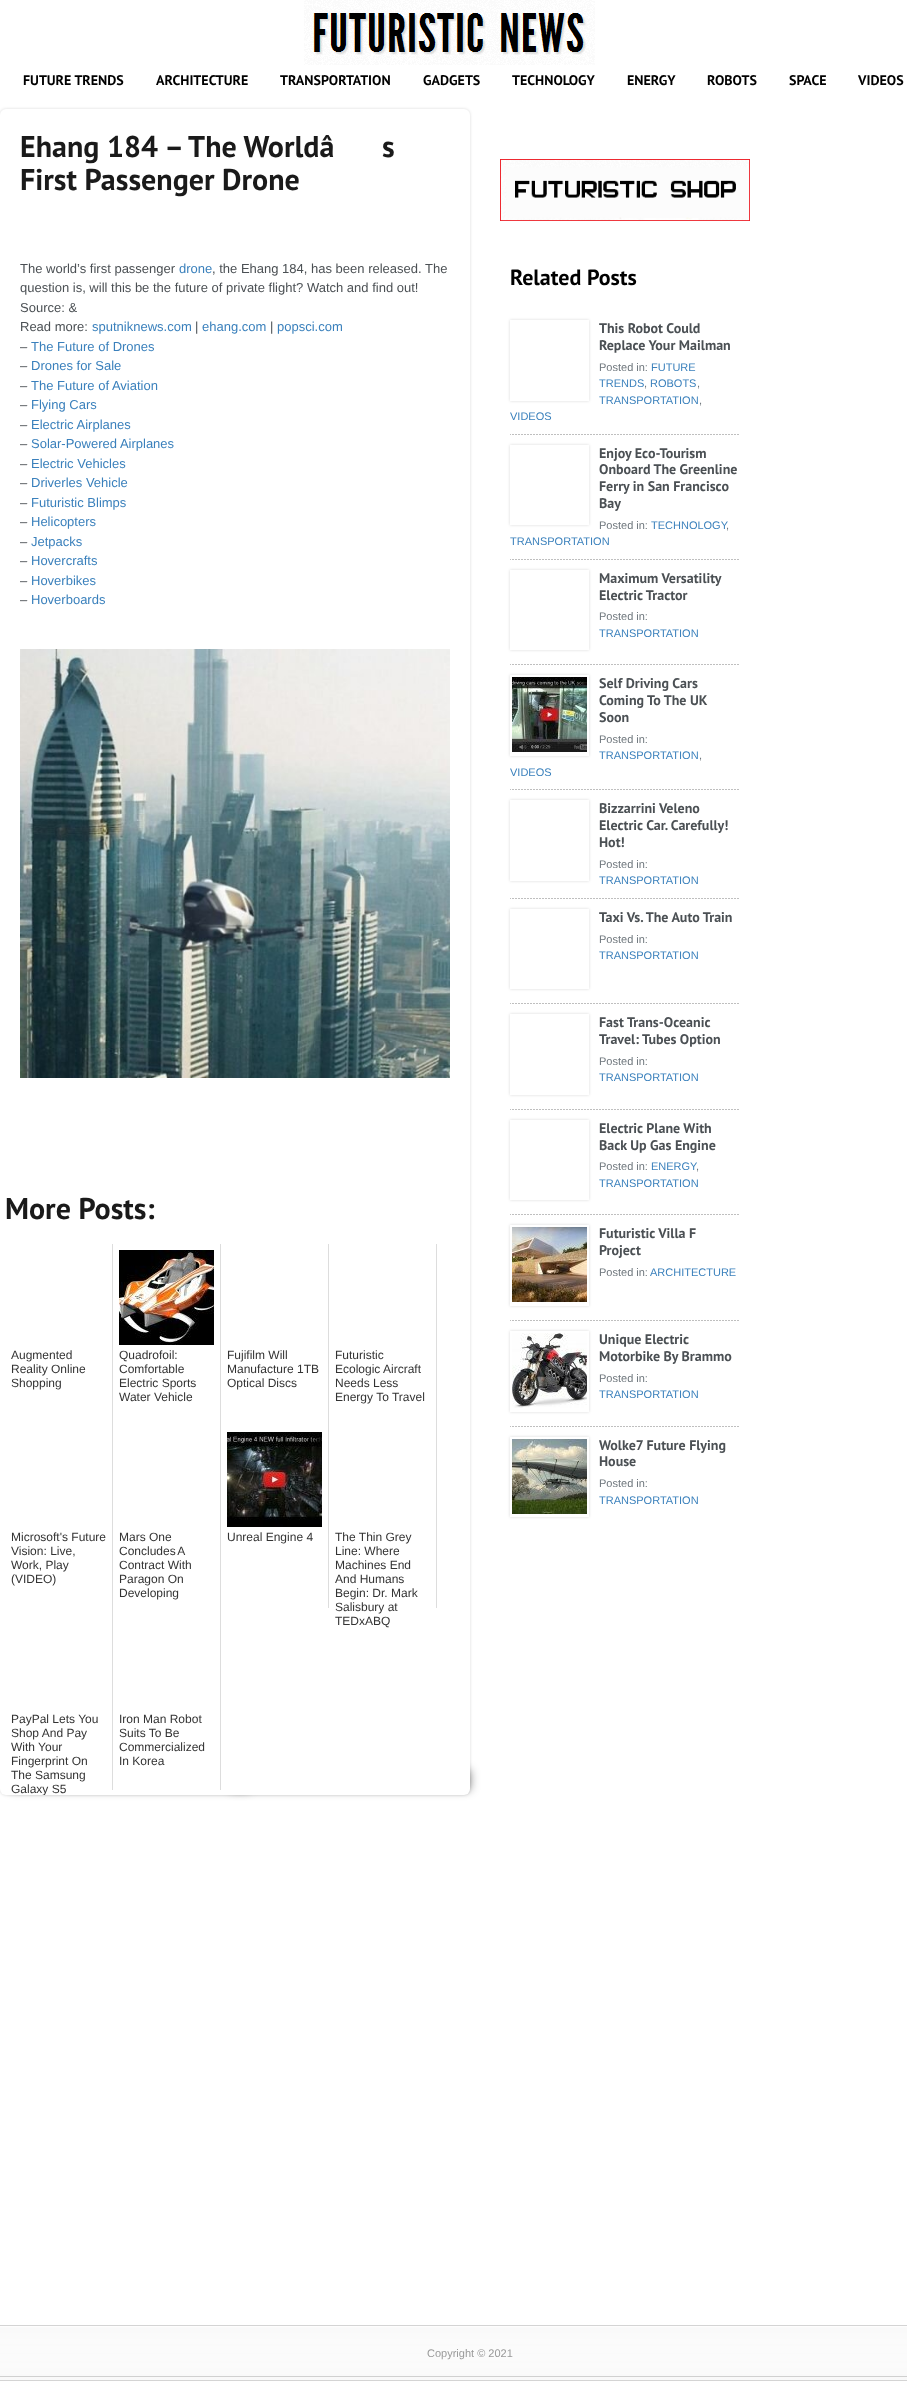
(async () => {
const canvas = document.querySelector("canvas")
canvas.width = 907
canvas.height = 2382
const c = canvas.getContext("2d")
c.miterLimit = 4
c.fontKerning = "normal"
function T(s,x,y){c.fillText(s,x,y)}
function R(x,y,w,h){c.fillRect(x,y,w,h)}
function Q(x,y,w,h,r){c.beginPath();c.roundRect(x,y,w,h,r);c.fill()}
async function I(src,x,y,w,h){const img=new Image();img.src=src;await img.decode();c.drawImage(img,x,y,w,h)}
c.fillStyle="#fff"
R(0,0,907,2382)
await I("1.png",304,0,291,65)
c.font="bold 14px PT Sans"
c.fillStyle="#000"
T("FUTURE TRENDS",23,85)
T("ARCHITECTURE",156,85)
T("TRANSPORTATION",280,85)
T("GADGETS",423,85)
T("TECHNOLOGY",512,85)
T("ENERGY",627,85)
T("ROBOTS",707,85)
T("SPACE",789,85)
T("VIDEOS",858,85)
c.fillStyle="#00000026"
c.filter="blur(1.5px)"
c.beginPath()
c.roundRect(0,109,470,1686,6)
c.fill()
c.filter="none"
c.fillStyle="#00000080"
c.filter="blur(5px)"
c.beginPath()
c.rect(10,1770,240,20)
c.fill()
c.filter="none"
c.filter="blur(5px)"
c.beginPath()
c.rect(230,1770,240,20)
c.fill()
c.filter="none"
c.fillStyle="#fff"
Q(0,109,470,1686,6)
c.font="bold 30px PT Sans"
c.fillStyle="#1a1a1a"
T("Ehang 184 – The Worldâ",20,157)
T("s",382,157)
T("First Passenger Drone",20,190)
c.font="13px Liberation Sans"
c.fillStyle="#4b5054"
T("The world’s first passenger",20,273)
c.fillStyle="#3a80bc"
T("drone",179,273)
c.fillStyle="#4b5054"
T(", the Ehang 184, has been released. The",212,273)
T("question is, will this be the future of private flight? Watch and find out!",20,292)
T("Source: &",20,312)
T("Read more:",20,331)
c.fillStyle="#3a80bc"
T("sputniknews.com",92,331)
c.fillStyle="#4b5054"
T("|",195,331)
c.fillStyle="#3a80bc"
T("ehang.com",202,331)
c.fillStyle="#4b5054"
T("|",270,331)
c.fillStyle="#3a80bc"
T("popsci.com",277,331)
c.fillStyle="#4b5054"
T("–",20,351)
c.fillStyle="#3a80bc"
T("The Future of Drones",31,351)
c.fillStyle="#4b5054"
T("–",20,370)
c.fillStyle="#3a80bc"
T("Drones for Sale",31,370)
c.fillStyle="#4b5054"
T("–",20,390)
c.fillStyle="#3a80bc"
T("The Future of Aviation",31,390)
c.fillStyle="#4b5054"
T("–",20,409)
c.fillStyle="#3a80bc"
T("Flying Cars",31,409)
c.fillStyle="#4b5054"
T("–",20,429)
c.fillStyle="#3a80bc"
T("Electric Airplanes",31,429)
c.fillStyle="#4b5054"
T("–",20,448)
c.fillStyle="#3a80bc"
T("Solar-Powered Airplanes",31,448)
c.fillStyle="#4b5054"
T("–",20,468)
c.fillStyle="#3a80bc"
T("Electric Vehicles",31,468)
c.fillStyle="#4b5054"
T("–",20,487)
c.fillStyle="#3a80bc"
T("Driverles Vehicle",31,487)
c.fillStyle="#4b5054"
T("–",20,507)
c.fillStyle="#3a80bc"
T("Futuristic Blimps",31,507)
c.fillStyle="#4b5054"
T("–",20,526)
c.fillStyle="#3a80bc"
T("Helicopters",31,526)
c.fillStyle="#4b5054"
T("–",20,546)
c.fillStyle="#3a80bc"
T("Jetpacks",31,546)
c.fillStyle="#4b5054"
T("–",20,565)
c.fillStyle="#3a80bc"
T("Hovercrafts",31,565)
c.fillStyle="#4b5054"
T("–",20,585)
c.fillStyle="#3a80bc"
T("Hoverbikes",31,585)
c.fillStyle="#4b5054"
T("–",20,604)
c.fillStyle="#3a80bc"
T("Hoverboards",31,604)
await I("2.png",20,649,430,429)
c.font="bold 30px PT Sans"
c.fillStyle="#1a1a1a"
T("More Posts:",5,1219)
c.fillStyle="#ddd"
R(112,1244,1,546)
c.font="12px Liberation Sans"
c.fillStyle="#333"
T("Augmented",11,1359)
T("Reality Online",11,1373)
T("Shopping",11,1387)
c.fillStyle="#ddd"
R(220,1244,1,546)
await I("3.png",119,1250,95,95)
c.fillStyle="#333"
T("Quadrofoil:",119,1359)
T("Comfortable",119,1373)
T("Electric Sports",119,1387)
T("Water Vehicle",119,1401)
c.fillStyle="#ddd"
R(328,1244,1,364)
c.fillStyle="#333"
T("Fujifilm Will",227,1359)
T("Manufacture 1TB",227,1373)
T("Optical Discs",227,1387)
c.fillStyle="#ddd"
R(436,1244,1,364)
c.fillStyle="#333"
T("Futuristic",335,1359)
T("Ecologic Aircraft",335,1373)
T("Needs Less",335,1387)
T("Energy To Travel",335,1401)
T("Microsoft's Future",11,1541)
T("Vision: Live,",11,1555)
T("Work, Play",11,1569)
T("(VIDEO)",11,1583)
T("Mars One",119,1541)
c.wordSpacing="-1px"
T("Concludes A",119,1555)
c.wordSpacing="0px"
T("Contract With",119,1569)
T("Paragon On",119,1583)
T("Developing",119,1597)
await I("4.png",227,1432,95,95)
T("Unreal Engine 4",227,1541)
T("The Thin Grey",335,1541)
T("Line: Where",335,1555)
T("Machines End",335,1569)
T("And Humans",335,1583)
T("Begin: Dr. Mark",335,1597)
T("Salisbury at",335,1611)
T("TEDxABQ",335,1625)
T("PayPal Lets You",11,1723)
T("Shop And Pay",11,1737)
T("With Your",11,1751)
T("Fingerprint On",11,1765)
T("The Samsung",11,1779)
c.save()
c.beginPath()
c.roundRect(0,109,470,1686,6)
c.clip()
T("Galaxy S5",11,1793)
c.restore()
T("Iron Man Robot",119,1723)
T("Suits To Be",119,1737)
T("Commercialized",119,1751)
T("In Korea",119,1765)
await I("5.png",500,159,250,62)
c.font="bold 22px PT Sans"
c.fillStyle="#000"
T("Related Posts",510,285)
await I("6.png",510,434,229,1)
c.fillStyle="#00000026"
c.filter="blur(1.5px)"
c.beginPath()
c.rect(510,320,79,81)
c.fill()
c.filter="none"
c.fillStyle="#fff"
R(510,320,79,81)
c.font="bold 14px PT Sans"
c.fillStyle="#4b5054"
T("This Robot Could",599,333)
T("Replace Your Mailman",599,350)
c.font="11px Liberation Sans"
c.fillStyle="#6f777d"
T("Posted in:",599,371)
c.fillStyle="#3a80bc"
T("FUTURE",651,371)
T("TRENDS",599,387)
c.fillStyle="#6f777d"
T(",",644,387)
c.fillStyle="#3a80bc"
T("ROBOTS",650,387)
c.fillStyle="#6f777d"
T(",",697,387)
c.fillStyle="#3a80bc"
T("TRANSPORTATION",599,404)
c.fillStyle="#6f777d"
T(",",699,404)
c.fillStyle="#3a80bc"
T("VIDEOS",510,420)
await I("7.png",510,559,229,1)
c.fillStyle="#00000026"
c.filter="blur(1.5px)"
c.beginPath()
c.rect(510,445,79,80)
c.fill()
c.filter="none"
c.fillStyle="#fff"
R(510,445,79,80)
c.font="bold 14px PT Sans"
c.fillStyle="#4b5054"
T("Enjoy Eco-Tourism",599,458)
T("Onboard The Greenline",599,474)
T("Ferry in San Francisco",599,491)
T("Bay",599,508)
c.font="11px Liberation Sans"
c.fillStyle="#6f777d"
T("Posted in:",599,529)
c.fillStyle="#3a80bc"
T("TECHNOLOGY",651,529)
c.fillStyle="#6f777d"
T(",",726,529)
c.fillStyle="#3a80bc"
T("TRANSPORTATION",510,545)
await I("8.png",510,664,229,1)
c.fillStyle="#00000026"
c.filter="blur(1.5px)"
c.beginPath()
c.rect(510,570,79,80)
c.fill()
c.filter="none"
c.fillStyle="#fff"
R(510,570,79,80)
c.font="bold 14px PT Sans"
c.fillStyle="#4b5054"
T("Maximum Versatility",599,583)
T("Electric Tractor",599,600)
c.font="11px Liberation Sans"
c.fillStyle="#6f777d"
T("Posted in:",599,620)
c.fillStyle="#3a80bc"
T("TRANSPORTATION",599,637)
await I("9.png",510,789,229,1)
c.fillStyle="#00000026"
c.filter="blur(1.5px)"
c.beginPath()
c.rect(510,675,79,81)
c.fill()
c.filter="none"
c.fillStyle="#fff"
R(510,675,79,81)
await I("10.png",512,677,75,75)
c.font="bold 14px PT Sans"
c.fillStyle="#4b5054"
T("Self Driving Cars",599,688)
T("Coming To The UK",599,705)
T("Soon",599,722)
c.font="11px Liberation Sans"
c.fillStyle="#6f777d"
T("Posted in:",599,743)
c.fillStyle="#3a80bc"
T("TRANSPORTATION",599,759)
c.fillStyle="#6f777d"
T(",",699,759)
c.fillStyle="#3a80bc"
T("VIDEOS",510,776)
await I("11.png",510,898,229,1)
c.fillStyle="#00000026"
c.filter="blur(1.5px)"
c.beginPath()
c.rect(510,800,79,81)
c.fill()
c.filter="none"
c.fillStyle="#fff"
R(510,800,79,81)
c.font="bold 14px PT Sans"
c.fillStyle="#4b5054"
T("Bizzarrini Veleno",599,813)
T("Electric Car. Carefully!",599,830)
T("Hot!",599,847)
c.font="11px Liberation Sans"
c.fillStyle="#6f777d"
T("Posted in:",599,868)
c.fillStyle="#3a80bc"
T("TRANSPORTATION",599,884)
await I("12.png",510,1003,229,1)
c.fillStyle="#00000026"
c.filter="blur(1.5px)"
c.beginPath()
c.rect(510,909,79,80)
c.fill()
c.filter="none"
c.fillStyle="#fff"
R(510,909,79,80)
c.font="bold 14px PT Sans"
c.fillStyle="#4b5054"
T("Taxi Vs. The Auto Train",599,922)
c.font="11px Liberation Sans"
c.fillStyle="#6f777d"
T("Posted in:",599,943)
c.fillStyle="#3a80bc"
T("TRANSPORTATION",599,959)
await I("13.png",510,1109,229,1)
c.fillStyle="#00000026"
c.filter="blur(1.5px)"
c.beginPath()
c.rect(510,1014,79,81)
c.fill()
c.filter="none"
c.fillStyle="#fff"
R(510,1014,79,81)
c.font="bold 14px PT Sans"
c.fillStyle="#4b5054"
T("Fast Trans-Oceanic",599,1027)
T("Travel: Tubes Option",599,1044)
c.font="11px Liberation Sans"
c.fillStyle="#6f777d"
T("Posted in:",599,1065)
c.fillStyle="#3a80bc"
T("TRANSPORTATION",599,1081)
await I("6.png",510,1214,229,1)
c.fillStyle="#00000026"
c.filter="blur(1.5px)"
c.beginPath()
c.rect(510,1120,79,80)
c.fill()
c.filter="none"
c.fillStyle="#fff"
R(510,1120,79,80)
c.font="bold 14px PT Sans"
c.fillStyle="#4b5054"
T("Electric Plane With",599,1133)
T("Back Up Gas Engine",599,1150)
c.font="11px Liberation Sans"
c.fillStyle="#6f777d"
T("Posted in:",599,1170)
c.fillStyle="#3a80bc"
T("ENERGY",651,1170)
c.fillStyle="#6f777d"
T(",",696,1170)
c.fillStyle="#3a80bc"
T("TRANSPORTATION",599,1187)
await I("14.png",510,1320,229,1)
c.fillStyle="#00000026"
c.filter="blur(1.5px)"
c.beginPath()
c.rect(510,1225,79,81)
c.fill()
c.filter="none"
c.fillStyle="#fff"
R(510,1225,79,81)
await I("15.png",512,1227,75,75)
c.font="bold 14px PT Sans"
c.fillStyle="#4b5054"
T("Futuristic Villa F",599,1238)
T("Project",599,1255)
c.font="11px Liberation Sans"
c.fillStyle="#6f777d"
T("Posted in:",599,1276)
c.fillStyle="#3a80bc"
T("ARCHITECTURE",650,1276)
await I("16.png",510,1426,229,1)
c.fillStyle="#00000026"
c.filter="blur(1.5px)"
c.beginPath()
c.rect(510,1331,79,81)
c.fill()
c.filter="none"
c.fillStyle="#fff"
R(510,1331,79,81)
await I("17.png",512,1333,75,75)
c.font="bold 14px PT Sans"
c.fillStyle="#4b5054"
T("Unique Electric",599,1344)
T("Motorbike By Brammo",599,1361)
c.font="11px Liberation Sans"
c.fillStyle="#6f777d"
T("Posted in:",599,1382)
c.fillStyle="#3a80bc"
T("TRANSPORTATION",599,1398)
c.fillStyle="#00000026"
c.filter="blur(1.5px)"
c.beginPath()
c.rect(510,1437,79,80)
c.fill()
c.filter="none"
c.fillStyle="#fff"
R(510,1437,79,80)
await I("18.png",512,1439,75,75)
c.font="bold 14px PT Sans"
c.fillStyle="#4b5054"
T("Wolke7 Future Flying",599,1450)
T("House",599,1466)
c.font="11px Liberation Sans"
c.fillStyle="#6f777d"
T("Posted in:",599,1487)
c.fillStyle="#3a80bc"
T("TRANSPORTATION",599,1504)
await I("19.png",0,2325,907,56)
c.fillStyle="#999"
T("Copyright © 2021",427,2357)
})()
